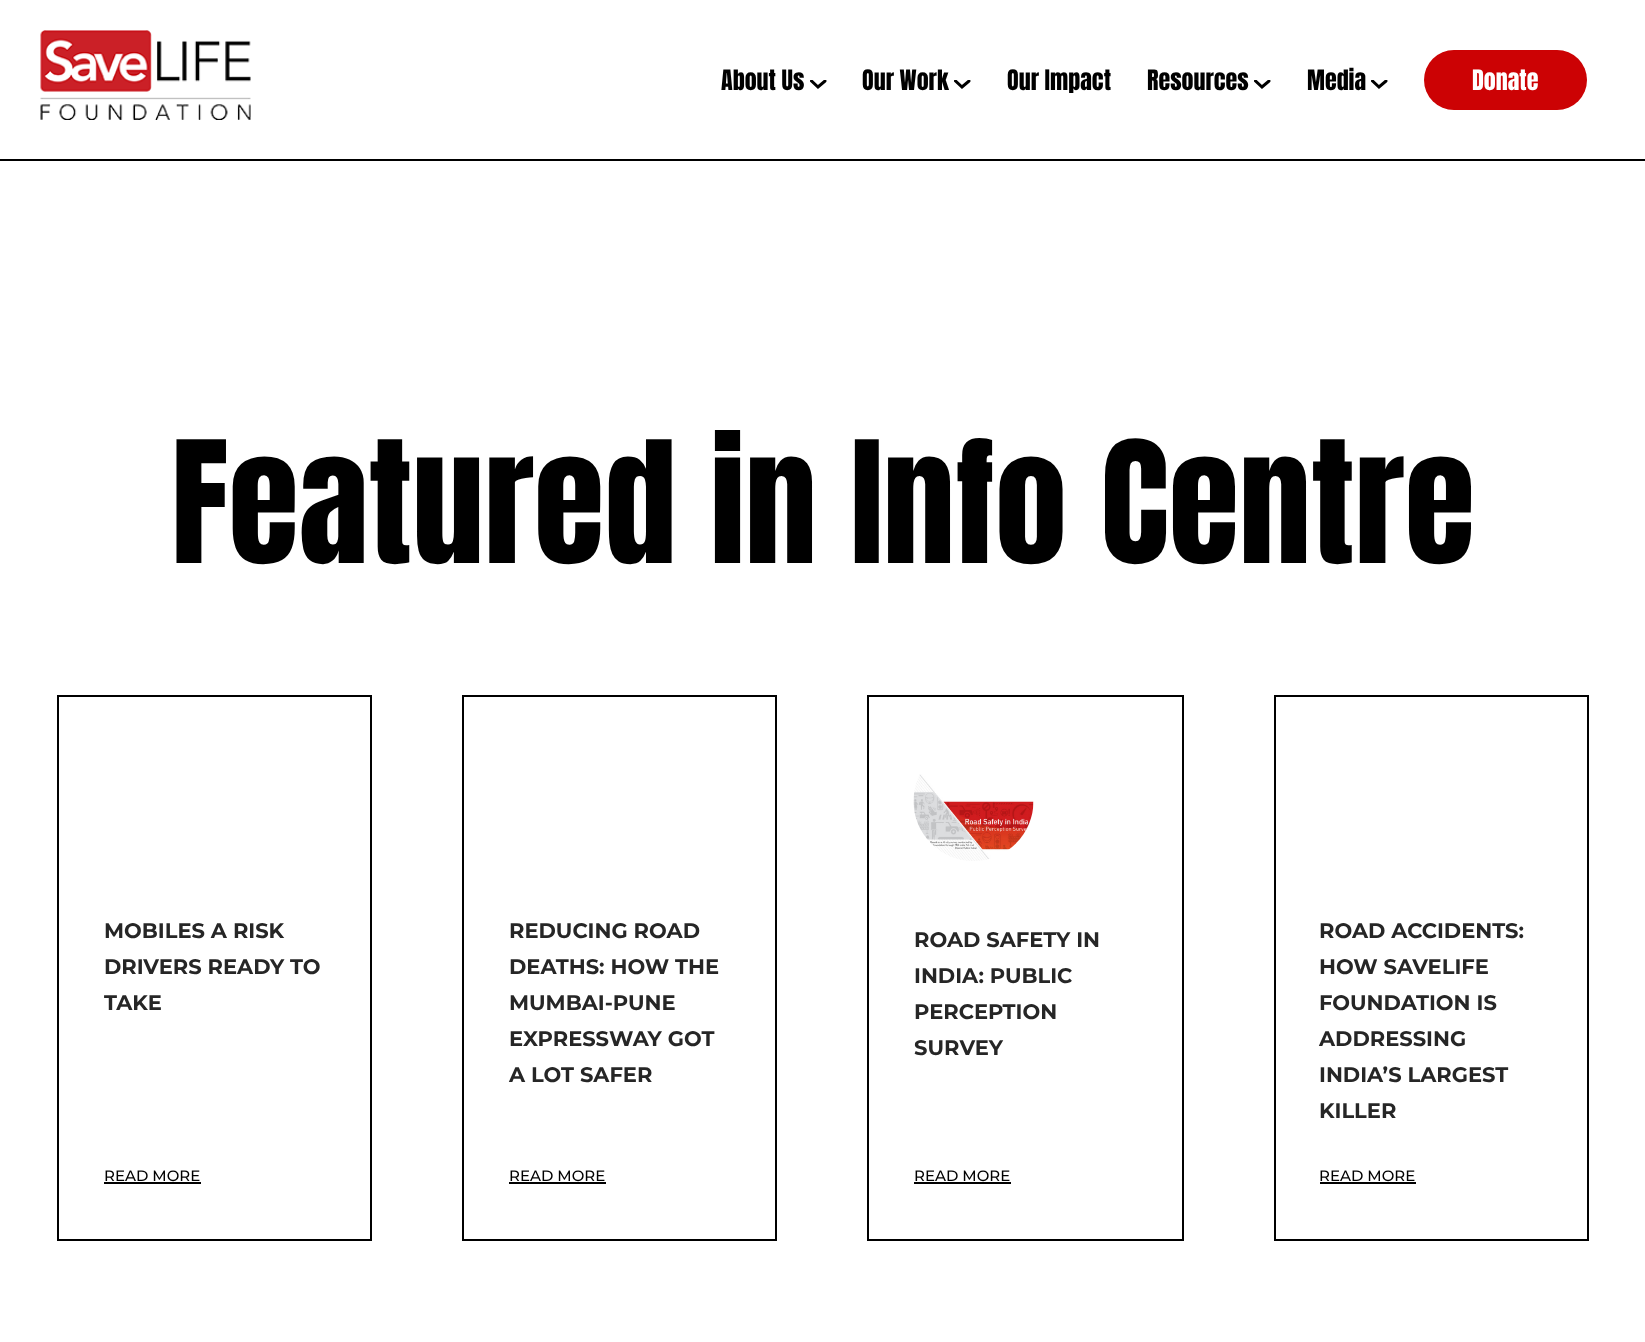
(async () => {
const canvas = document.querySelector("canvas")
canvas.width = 1645
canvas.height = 1342
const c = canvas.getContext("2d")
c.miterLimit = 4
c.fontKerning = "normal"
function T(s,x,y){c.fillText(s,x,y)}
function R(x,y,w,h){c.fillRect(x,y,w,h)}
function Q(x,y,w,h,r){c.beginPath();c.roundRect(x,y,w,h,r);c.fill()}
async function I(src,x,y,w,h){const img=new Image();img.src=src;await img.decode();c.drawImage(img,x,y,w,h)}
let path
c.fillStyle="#fff"
R(0,0,1645,1342)
c.fillStyle="#000"
R(0,159,1645,2)
await I("1.png",40,30,211,90)
c.font="24px Anton"
T("About Us",721,90)
c.save()
c.beginPath()
c.rect(810,80,17,10)
c.clip()
path = new Path2D("M811.5 81l6.5 6l7-6")
c.strokeStyle="#000"
c.lineWidth=3
c.lineCap="round"
c.stroke(path)
c.restore()
T("Our Work",862,90)
c.save()
c.beginPath()
c.rect(954,80,17,10)
c.clip()
path = new Path2D("M955.5 81l6.5 6l7-6")
c.strokeStyle="#000"
c.lineWidth=3
c.lineCap="round"
c.stroke(path)
c.restore()
T("Our Impact",1007,90)
T("Resources",1147,90)
c.save()
c.beginPath()
c.rect(1254,80,17,10)
c.clip()
path = new Path2D("M1255.5 81l6.5 6l7-6")
c.strokeStyle="#000"
c.lineWidth=3
c.lineCap="round"
c.stroke(path)
c.restore()
T("Media",1307,90)
c.save()
c.beginPath()
c.rect(1371,80,17,10)
c.clip()
path = new Path2D("M1372.5 81l6.5 6l7-6")
c.strokeStyle="#000"
c.lineWidth=3
c.lineCap="round"
c.stroke(path)
c.restore()
c.fillStyle="#cc0204"
Q(1424,50,163,60,30)
c.fillStyle="#fff"
T("Donate",1472,90)
c.font="144px Anton"
c.fillStyle="#000"
T("Featured in Info Centre",171,563)
c.strokeStyle="#000"
c.lineWidth=2
c.strokeRect(58,696,313,544)
c.font="bold 21px Montserrat"
c.fillStyle="#262626"
T("MOBILES A RISK",104,938)
T("DRIVERS READY TO",104,974)
T("TAKE",104,1010)
c.font="500 15px Montserrat"
c.fillStyle="#000"
T("READ MORE",104,1181)
c.fillStyle="#010101"
R(104,1182,97,2)
c.strokeRect(463,696,313,544)
c.font="bold 21px Montserrat"
c.fillStyle="#262626"
T("REDUCING ROAD",509,938)
T("DEATHS: HOW THE",509,974)
T("MUMBAI-PUNE",509,1010)
T("EXPRESSWAY GOT",509,1046)
T("A LOT SAFER",509,1082)
c.font="500 15px Montserrat"
c.fillStyle="#000"
T("READ MORE",509,1181)
c.fillStyle="#010101"
R(509,1182,97,2)
c.strokeRect(868,696,315,544)
await I("2.png",913,774,121,87)
c.font="bold 21px Montserrat"
c.fillStyle="#262626"
T("ROAD SAFETY IN",914,947)
T("INDIA: PUBLIC",914,983)
T("PERCEPTION",914,1019)
T("SURVEY",914,1055)
c.font="500 15px Montserrat"
c.fillStyle="#000"
T("READ MORE",914,1181)
c.fillStyle="#010101"
R(914,1182,97,2)
c.strokeRect(1275,696,313,544)
c.font="bold 21px Montserrat"
c.fillStyle="#262626"
T("ROAD ACCIDENTS:",1319,938)
T("HOW SAVELIFE",1319,974)
T("FOUNDATION IS",1319,1010)
T("ADDRESSING",1319,1046)
T("INDIA’S LARGEST",1319,1082)
T("KILLER",1319,1118)
c.font="500 15px Montserrat"
c.fillStyle="#000"
T("READ MORE",1319,1181)
c.fillStyle="#010101"
R(1320,1182,96,2)
})()
